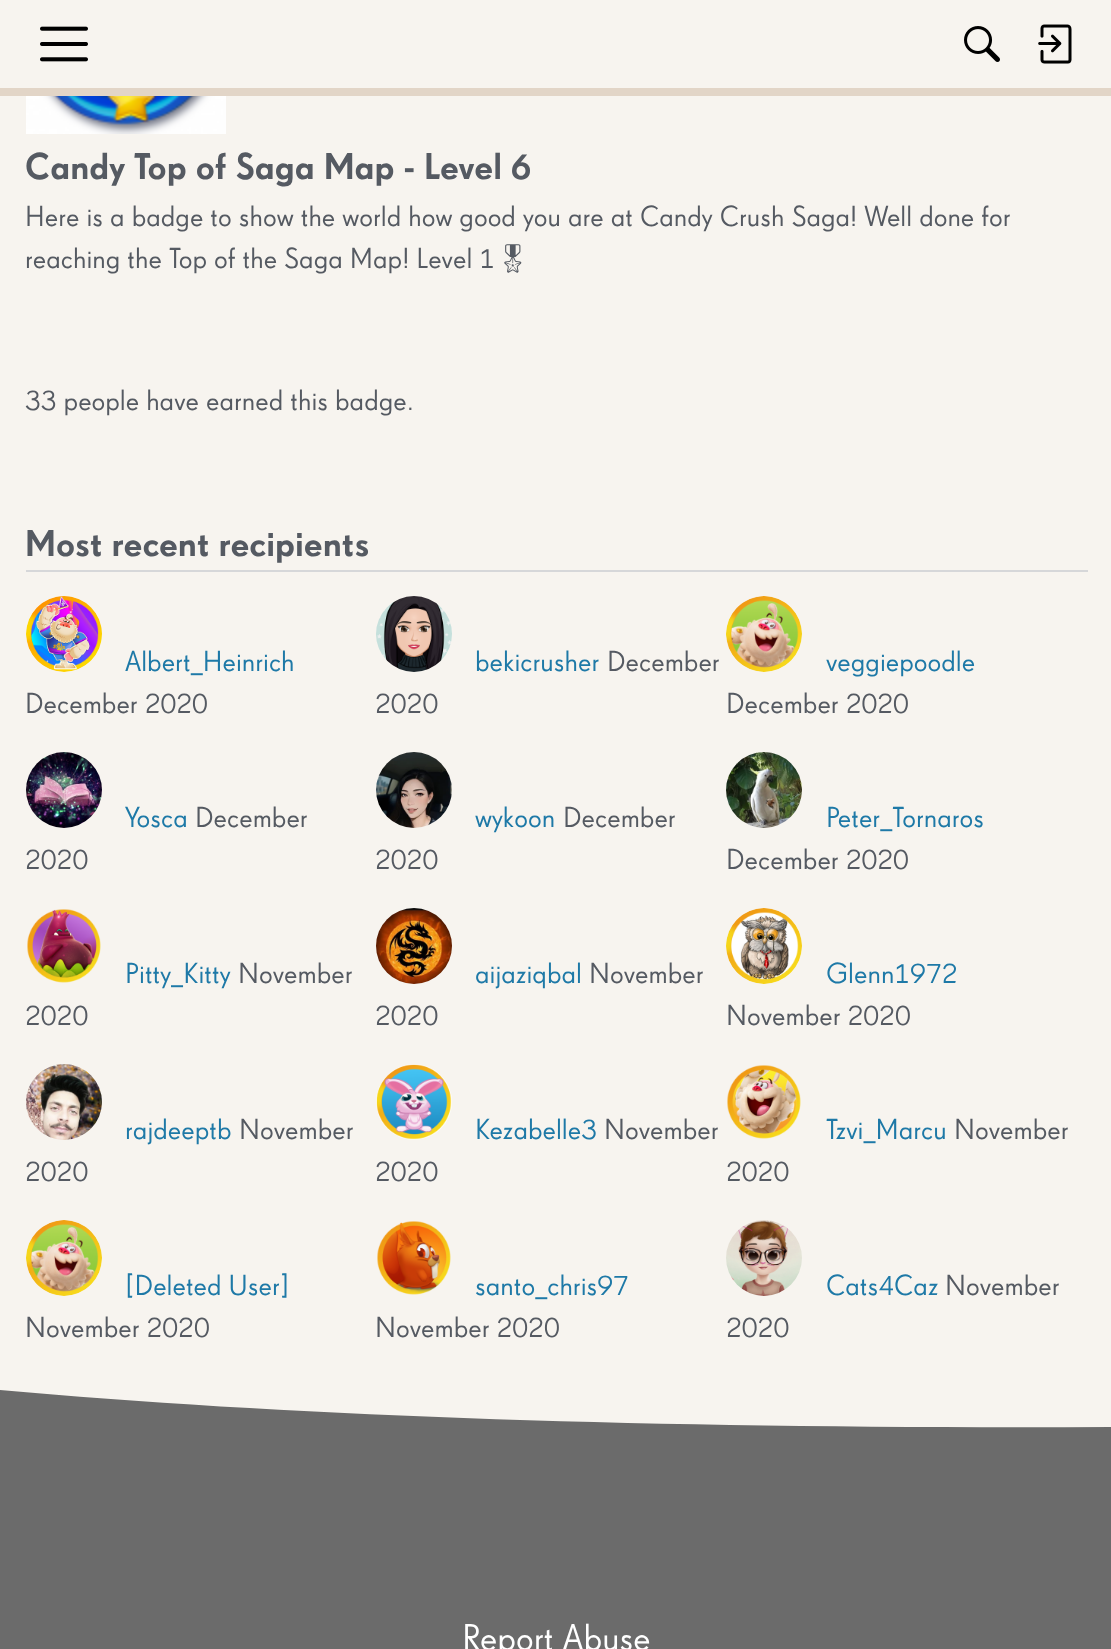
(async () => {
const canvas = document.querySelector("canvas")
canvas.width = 1111
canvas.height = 1649
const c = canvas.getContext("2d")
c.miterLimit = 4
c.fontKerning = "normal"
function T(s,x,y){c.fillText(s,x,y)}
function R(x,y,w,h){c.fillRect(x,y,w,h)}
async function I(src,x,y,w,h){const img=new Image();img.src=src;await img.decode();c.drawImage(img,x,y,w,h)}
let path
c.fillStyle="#f7f4ef"
R(0,0,1111,1649)
c.fillStyle="#e2d5c7"
R(0,88,1111,8)
await I("1.png",40,26,48,36)
await I("2.png",964,26,36,36)
await I("3.png",1038,24,34,40)
await I("4.png",26,96,200,38)
c.font="500 36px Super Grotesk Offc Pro"
c.fillStyle="#555a62"
T("Candy Top of Saga Map - Level 6",25,179)
c.font="28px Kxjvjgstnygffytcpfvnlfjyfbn"
T("Here is a badge to show the world how good you are at Candy Crush Saga! Well done for",25,226)
T("reaching the Top of the Saga Map! Level 1",25,268)
c.font="28px Noto Emoji"
T("🎖",495,268)
c.font="28px Kxjvjgstnygffytcpfvnlfjyfbn"
T("33 people have earned this badge.",25,410)
c.fillStyle="#d6d7d9"
R(26,570,1062,2)
c.font="500 36px Super Grotesk Offc Pro"
c.fillStyle="#555a62"
T("Most recent recipients",25,556)
await I("5.png",26,596,76,76)
c.font="28px Kxjvjgstnygffytcpfvnlfjyfbn"
c.fillStyle="#1e79a7"
T("Albert_Heinrich",125,671)
c.fillStyle="#555a62"
T("December 2020",25,713)
await I("6.png",376,596,76,76)
c.fillStyle="#1e79a7"
T("bekicrusher",475,671)
c.fillStyle="#555a62"
T("December",607,671)
T("2020",375,713)
await I("7.png",726,596,76,76)
c.fillStyle="#1e79a7"
T("veggiepoodle",826,671)
c.fillStyle="#555a62"
T("December 2020",726,713)
await I("8.png",26,752,76,76)
c.fillStyle="#1e79a7"
T("Yosca",125,827)
c.fillStyle="#555a62"
T("December",195,827)
T("2020",25,869)
await I("9.png",376,752,76,76)
c.fillStyle="#1e79a7"
T("wykoon",475,827)
c.fillStyle="#555a62"
T("December",563,827)
T("2020",375,869)
await I("10.png",726,752,76,76)
c.fillStyle="#1e79a7"
T("Peter_Tornaros",826,827)
c.fillStyle="#555a62"
T("December 2020",726,869)
await I("11.png",27,909,74,74)
c.fillStyle="#1e79a7"
T("Pitty_Kitty",125,983)
c.fillStyle="#555a62"
T("November",238,983)
T("2020",25,1025)
await I("12.png",376,908,76,76)
c.fillStyle="#1e79a7"
T("aijaziqbal",475,983)
c.fillStyle="#555a62"
T("November",589,983)
T("2020",375,1025)
await I("13.png",726,908,76,76)
c.fillStyle="#1e79a7"
T("Glenn1972",826,983)
c.fillStyle="#555a62"
T("November 2020",726,1025)
await I("14.png",26,1064,76,76)
c.fillStyle="#1e79a7"
T("rajdeeptb",125,1139)
c.fillStyle="#555a62"
T("November",239,1139)
T("2020",25,1181)
await I("15.png",376,1064,76,76)
c.fillStyle="#1e79a7"
T("Kezabelle3",475,1139)
c.fillStyle="#555a62"
T("November",604,1139)
T("2020",375,1181)
await I("16.png",727,1065,74,74)
c.fillStyle="#1e79a7"
T("Tzvi_Marcu",826,1139)
c.fillStyle="#555a62"
T("November",954,1139)
T("2020",726,1181)
await I("17.png",26,1220,76,76)
c.fillStyle="#1e79a7"
T("[Deleted User]",125,1295)
c.fillStyle="#555a62"
T("November 2020",25,1337)
await I("18.png",377,1221,74,74)
c.fillStyle="#1e79a7"
T("santo_chris97",475,1295)
c.fillStyle="#555a62"
T("November 2020",375,1337)
await I("19.png",726,1220,76,76)
c.fillStyle="#1e79a7"
T("Cats4Caz",826,1295)
c.fillStyle="#555a62"
T("November",945,1295)
T("2020",726,1337)
c.fillStyle="#6b6b6b"
R(0,1456,1111,193)
path = new Path2D("M0 1390c300 27 671 39 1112 37v29h-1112z")
c.fill(path)
c.font="36px Kxjvjgstnygffytcpfvnlfjyfbn"
c.fillStyle="#fff"
T("Report Abuse",462,1650)
})()
